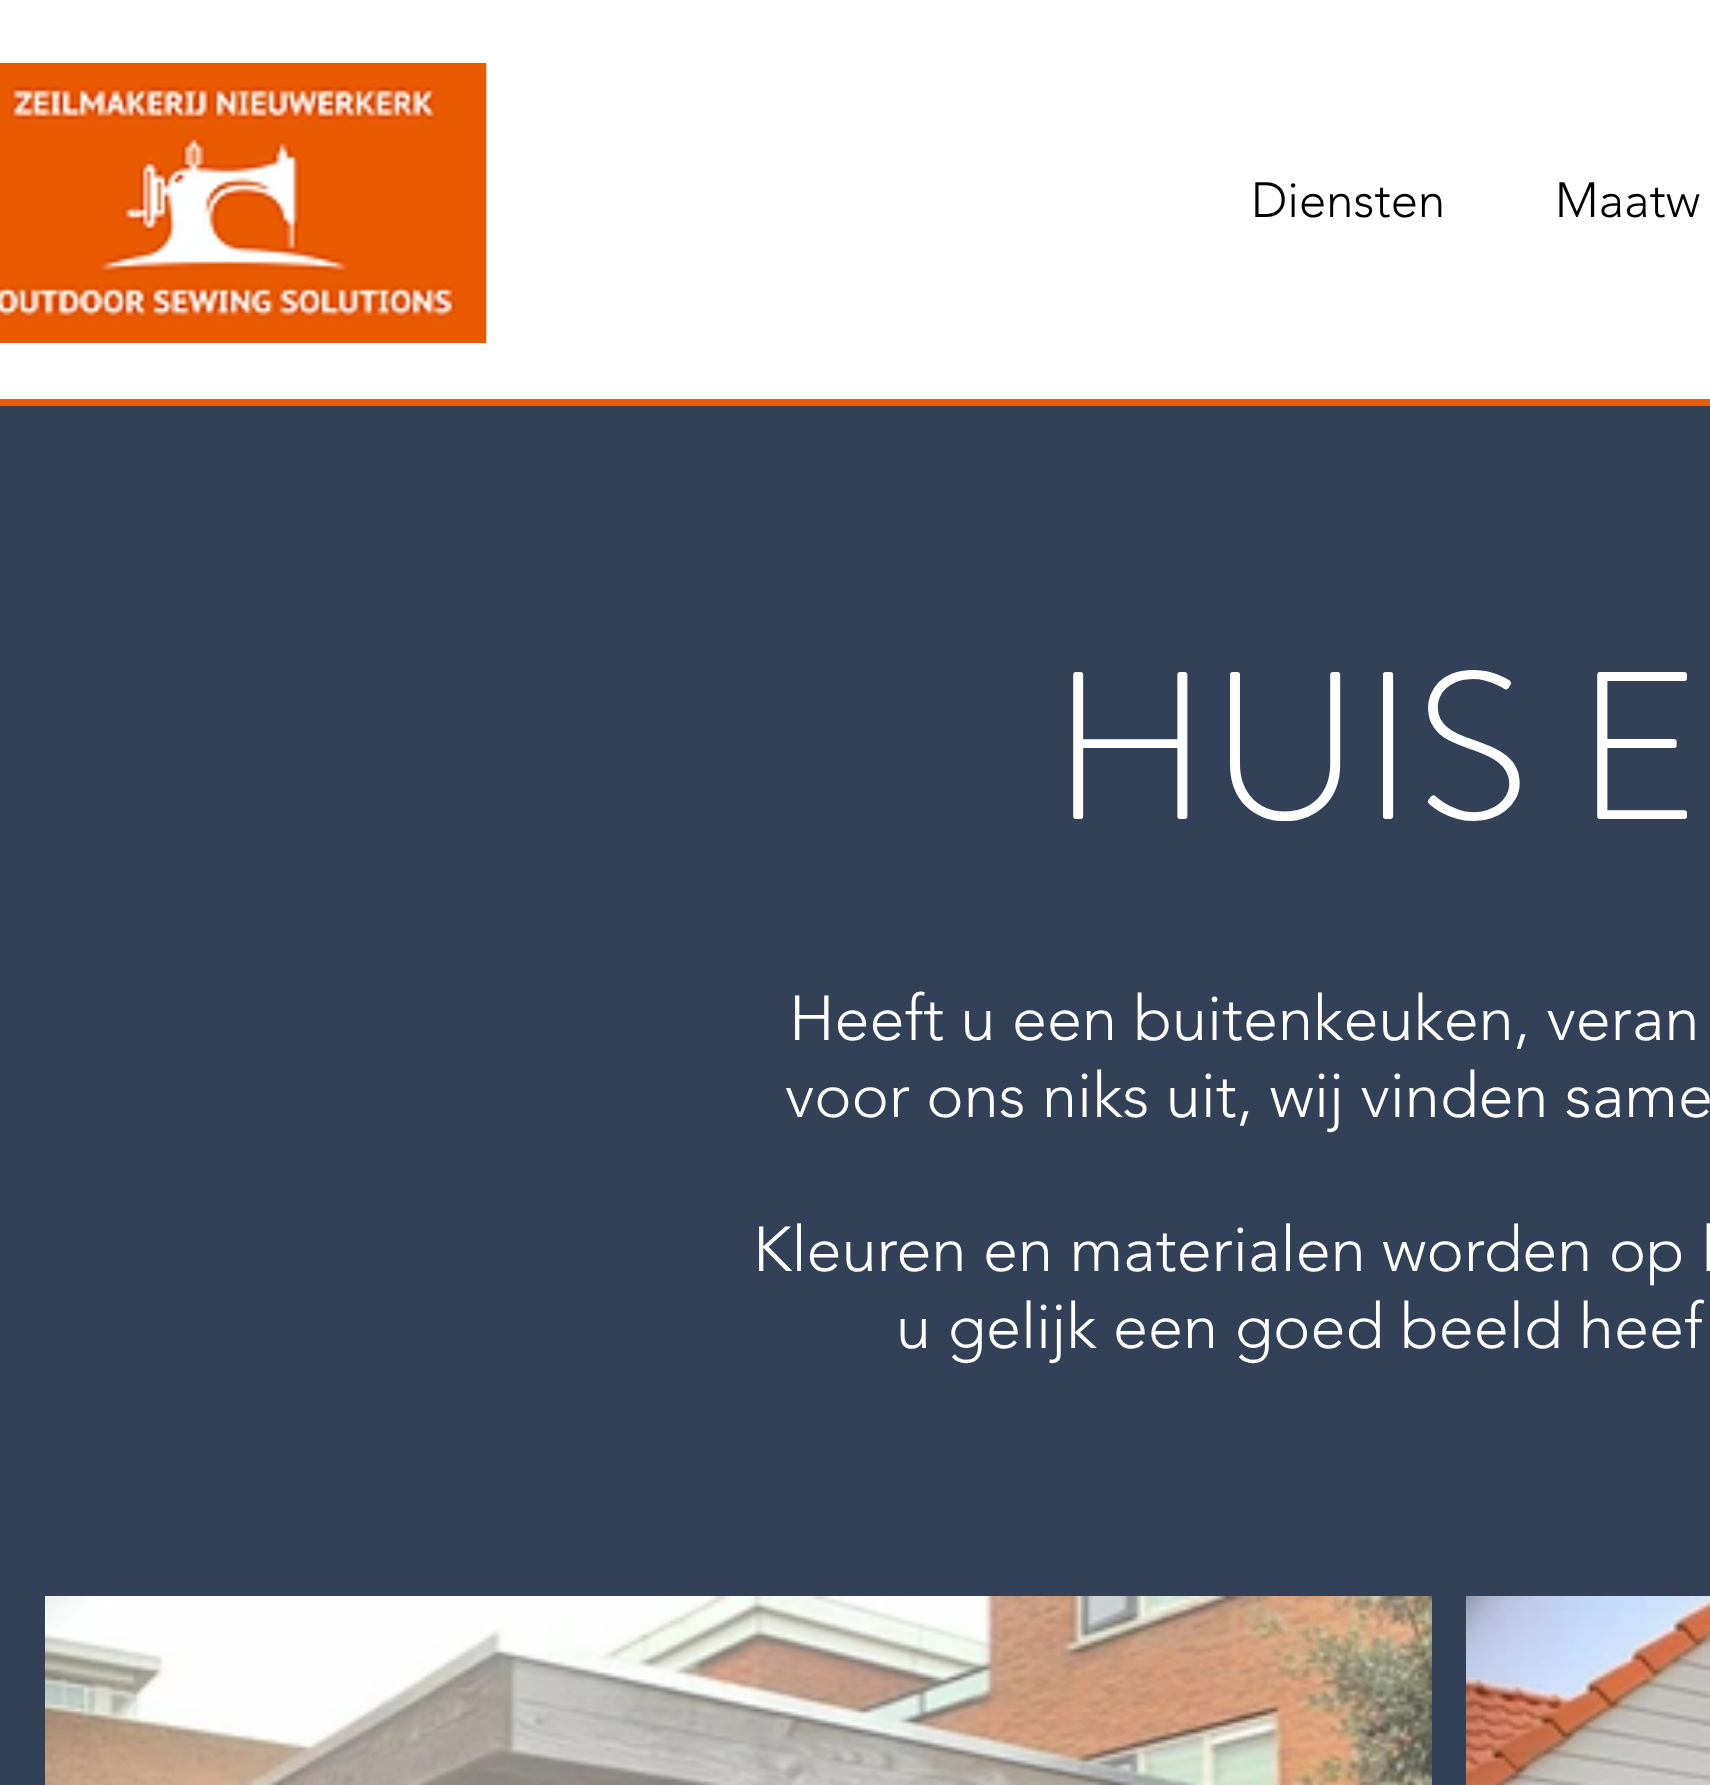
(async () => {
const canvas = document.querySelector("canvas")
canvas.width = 1710
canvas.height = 1785
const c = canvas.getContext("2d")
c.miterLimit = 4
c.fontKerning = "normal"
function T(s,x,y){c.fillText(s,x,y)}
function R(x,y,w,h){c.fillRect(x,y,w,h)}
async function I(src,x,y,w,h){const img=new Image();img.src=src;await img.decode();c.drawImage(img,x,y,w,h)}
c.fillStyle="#324158"
R(0,0,1710,1785)
c.fillStyle="#fff"
R(0,0,1710,399)
c.fillStyle="#ec5c04"
R(0,399,1710,7)
await I("1.png",0,63,487,280)
c.font="300 49px 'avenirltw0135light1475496'"
c.fillStyle="#000"
T("Diensten",1251,217)
T("Maatw",1555,217)
c.font="300 210px 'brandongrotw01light'"
c.fillStyle="#fff"
T("HUIS E",1051,819)
c.font="300 63px 'avenirltw0135light1475496'"
T("Heeft u een buitenkeuken, veran",789,1040)
T("voor ons niks uit, wij vinden same",785,1117)
T("Kleuren en materialen worden op l",753,1271)
T("u gelijk een goed beeld heef",896,1348)
await I("2.png",45,1596,1387,189)
await I("3.png",1466,1596,244,189)
})()
